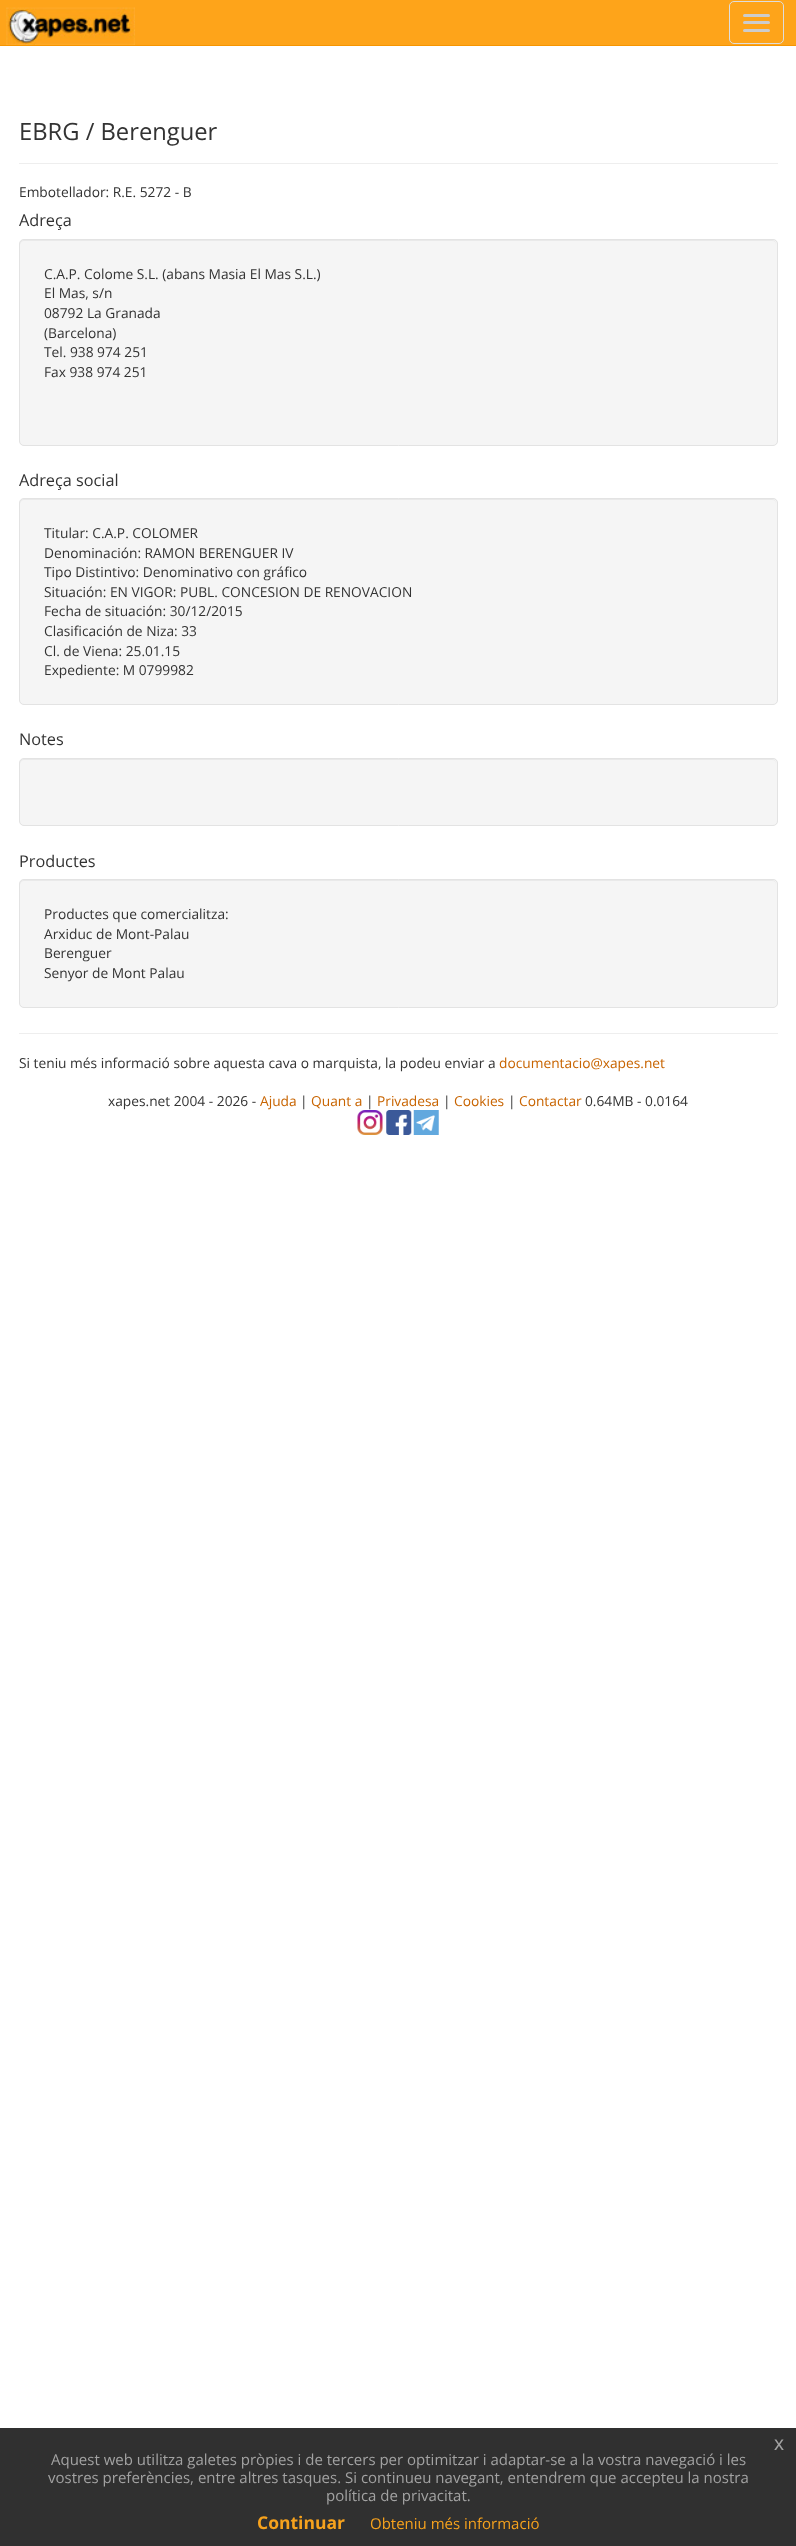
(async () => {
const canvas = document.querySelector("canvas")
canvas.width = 796
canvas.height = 2546
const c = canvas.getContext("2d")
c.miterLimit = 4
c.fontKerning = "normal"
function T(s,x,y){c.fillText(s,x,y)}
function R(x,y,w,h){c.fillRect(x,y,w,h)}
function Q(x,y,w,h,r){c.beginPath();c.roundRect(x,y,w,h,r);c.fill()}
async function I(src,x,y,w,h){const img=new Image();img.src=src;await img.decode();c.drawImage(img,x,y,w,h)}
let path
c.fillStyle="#fff"
R(0,0,796,2546)
c.fillStyle="#fea41a"
R(0,0,796,45)
c.fillStyle="#f69501"
R(0,45,796,1)
await I("1.png",6,7,129,38)
c.beginPath()
c.roundRect(729.5,1.5,54,42,4.5)
c.strokeStyle="#ddd"
c.stroke()
c.fillStyle="#ccc"
Q(743,14,27,3,1.5)
Q(743,21,27,3,1.5)
Q(743,29,27,3,1.5)
c.fillStyle="#eee"
R(19,163,759,1)
c.font="23.75px Open Sans"
c.fillStyle="#333"
T("EBRG / Berenguer",19,140)
c.font="13.75px Open Sans"
T("Embotellador: R.E. 5272 - B",19,197)
c.font="16.25px Open Sans"
T("Adreça",19,226)
c.fillStyle="#f5f5f5"
Q(19,239,759,207,5)
c.fillStyle="#e9e9e9"
path = new Path2D("M24 241h748c3 0 4 2 4 4v-1c0-2-2-4-4-4h-748c-2 0-4 2-4 4v1c0-2 2-4 4-4z")
c.fill(path)
c.beginPath()
c.roundRect(19.5,239.5,758,206,4.5)
c.strokeStyle="#e3e3e3"
c.stroke()
c.font="13.75px Open Sans"
c.fillStyle="#333"
T("C.A.P. Colome S.L. (abans Masia El Mas S.L.)",44,279)
T("El Mas, s/n",44,298)
T("08792 La Granada",44,318)
T("(Barcelona)",44,338)
T("Tel. 938 974 251",44,357)
T("Fax 938 974 251",44,377)
c.font="16.25px Open Sans"
T("Adreça social",19,486)
c.fillStyle="#f5f5f5"
Q(19,498,759,207,5)
c.fillStyle="#e9e9e9"
path = new Path2D("M24 500h748c3 0 4 2 4 4v-1c0-2-2-4-4-4h-748c-2 0-4 2-4 4v1c0-2 2-4 4-4z")
c.fill(path)
c.beginPath()
c.roundRect(19.5,498.5,758,206,4.5)
c.stroke()
c.font="13.75px Open Sans"
c.fillStyle="#333"
T("Titular: C.A.P. COLOMER",44,538)
T("Denominación: RAMON BERENGUER IV",44,558)
T("Tipo Distintivo: Denominativo con gráfico",44,577)
T("Situación: EN VIGOR: PUBL. CONCESION DE RENOVACION",44,597)
T("Fecha de situación: 30/12/2015",44,616)
T("Clasificación de Niza: 33",44,636)
T("Cl. de Viena: 25.01.15",44,656)
T("Expediente: M 0799982",44,675)
c.font="16.25px Open Sans"
T("Notes",19,745)
c.fillStyle="#f5f5f5"
Q(19,758,759,68,5)
c.fillStyle="#e9e9e9"
path = new Path2D("M24 760h748c3 0 4 2 4 4v-1c0-2-2-4-4-4h-748c-2 0-4 2-4 4v1c0-2 2-4 4-4z")
c.fill(path)
c.beginPath()
c.roundRect(19.5,758.5,758,67,4.5)
c.stroke()
c.fillStyle="#333"
T("Productes",19,867)
c.fillStyle="#f5f5f5"
Q(19,879,759,129,5)
c.fillStyle="#e9e9e9"
path = new Path2D("M24 881h748c3 0 4 2 4 4v-1c0-2-2-4-4-4h-748c-2 0-4 2-4 4v1c0-2 2-4 4-4z")
c.fill(path)
c.beginPath()
c.roundRect(19.5,879.5,758,128,4.5)
c.stroke()
c.font="13.75px Open Sans"
c.fillStyle="#333"
T("Productes que comercialitza:",44,919)
T("Arxiduc de Mont-Palau",44,939)
T("Berenguer",44,958)
T("Senyor de Mont Palau",44,978)
c.fillStyle="#eee"
R(19,1033,759,1)
c.fillStyle="#333"
T("Si teniu més informació sobre aquesta cava o marquista, la podeu enviar a",19,1068)
c.fillStyle="#c86401"
T("documentacio@xapes.net",499,1068)
c.fillStyle="#333"
T("xapes.net 2004 - 2026 -",108,1106)
c.fillStyle="#c86401"
T("Ajuda",260,1106)
c.fillStyle="#333"
T("|",300,1106)
c.fillStyle="#c86401"
T("Quant a",311,1106)
c.fillStyle="#333"
T("|",366,1106)
c.fillStyle="#c86401"
T("Privadesa",377,1106)
c.fillStyle="#333"
T("|",443,1106)
c.fillStyle="#c86401"
T("Cookies",454,1106)
c.fillStyle="#333"
T("|",508,1106)
c.fillStyle="#c86401"
T("Contactar",519,1106)
c.fillStyle="#333"
T("0.64MB - 0.0164",585,1106)
await I("2.png",357,1110,26,25)
await I("3.png",386,1110,26,25)
await I("4.png",413,1110,26,25)
c.fillStyle="#303030"
R(0,2428,796,118)
c.font="20px Liberation Sans"
c.fillStyle="#a2a2a2"
T("x",774,2450)
c.font="15px Open Sans"
T("Aquest web utilitza galetes pròpies i de tercers per optimitzar i adaptar-se a la vostra navegació i les",51,2465)
T("vostres preferències, entre altres tasques. Si continueu navegant, entendrem que accepteu la nostra",48,2483)
T("política de privacitat.",326,2501)
c.font="bold 17.5px Open Sans"
c.fillStyle="#f6a21d"
T("Continuar",257,2529)
c.font="15px Open Sans"
T("Obteniu més informació",370,2529)
})()
